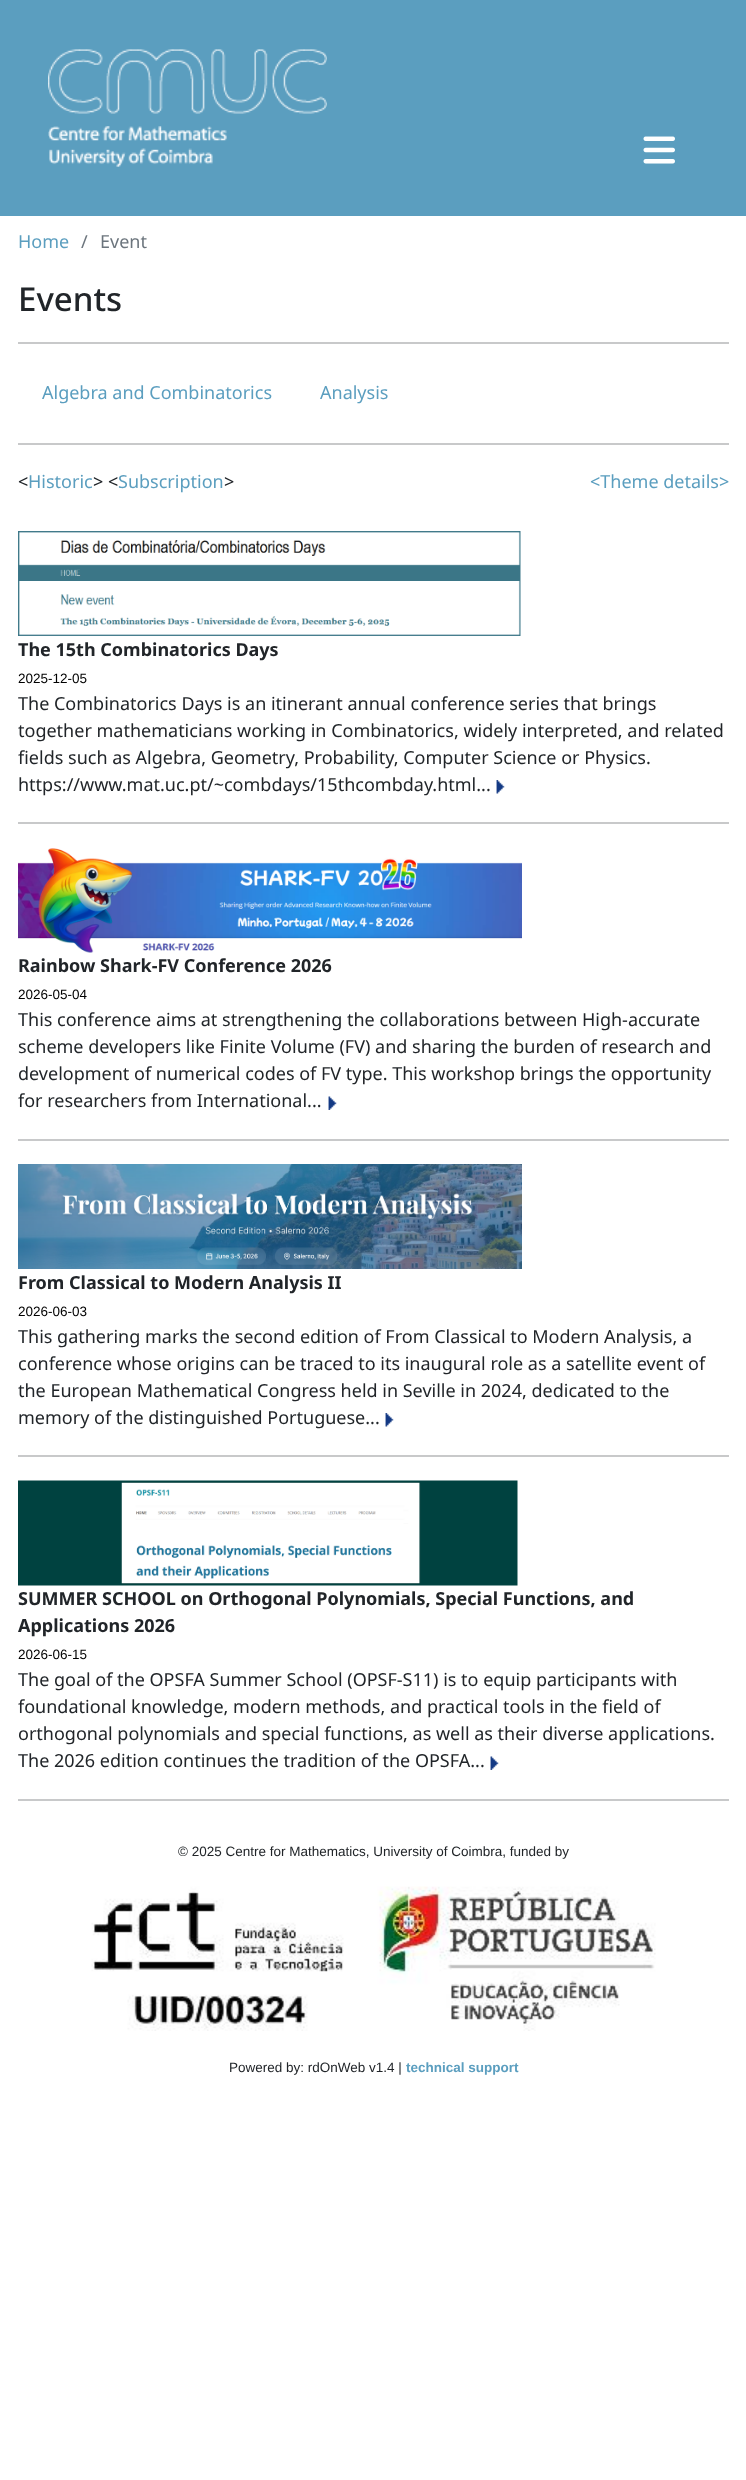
(async () => {
const canvas = document.querySelector("canvas")
canvas.width = 746
canvas.height = 2480
const c = canvas.getContext("2d")
c.miterLimit = 4
c.fontKerning = "normal"
function T(s,x,y){c.fillText(s,x,y)}
function R(x,y,w,h){c.fillRect(x,y,w,h)}
async function I(src,x,y,w,h){const img=new Image();img.src=src;await img.decode();c.drawImage(img,x,y,w,h)}
c.fillStyle="#fff"
R(0,0,746,2480)
c.fillStyle="#5b9ebf"
R(0,0,746,216)
await I("1.png",48,49,279,118)
await I("2.png",643,136,32,28)
c.font="18px Noto Sans"
T("Home",18,248)
c.fillStyle="#6c757d"
T("/",81,248)
T("Event",100,248)
c.font="500 33px Noto Sans"
c.fillStyle="#212529"
T("Events",18,311)
c.fillStyle="#c8c9ca"
R(18,342,711,2)
c.font="18px Noto Sans"
c.fillStyle="#5b9ebf"
T("Algebra and Combinatorics",42,399)
T("Analysis",320,399)
c.fillStyle="#c8c9ca"
R(18,443,711,2)
c.fillStyle="#212529"
T("<",18,488)
c.fillStyle="#5b9ebf"
T("Historic",28,488)
c.fillStyle="#212529"
T("> <",93,488)
c.fillStyle="#5b9ebf"
T("Subscription",118,488)
c.fillStyle="#212529"
T(">",224,488)
c.fillStyle="#5b9ebf"
T("<Theme details>",590,488)
await I("3.png",18,531,503,105)
c.font="bold 18px Noto Sans"
c.fillStyle="#212529"
T("The 15th Combinatorics Days",18,656)
c.font="13.5px Liberation Sans"
c.fillStyle="#000"
T("2025-12-05",18,683)
c.font="18px Noto Sans"
c.fillStyle="#212529"
T("The Combinatorics Days is an itinerant annual conference series that brings",18,710)
T("together mathematicians working in Combinatorics, widely interpreted, and related",18,737)
T("fields such as Algebra, Geometry, Probability, Computer Science or Physics.",18,764)
T("https://www.mat.uc.pt/~combdays/15thcombday.html...",18,791)
await I("4.png",496,780,9,14)
c.fillStyle="#c8c9ca"
R(18,822,711,2)
await I("5.png",18,848,504,105)
c.font="bold 18px Noto Sans"
c.fillStyle="#212529"
T("Rainbow Shark-FV Conference 2026",18,972)
c.font="13.5px Liberation Sans"
c.fillStyle="#000"
T("2026-05-04",18,999)
c.font="18px Noto Sans"
c.fillStyle="#212529"
T("This conference aims at strengthening the collaborations between High-accurate",18,1026)
T("scheme developers like Finite Volume (FV) and sharing the burden of research and",18,1053)
T("development of numerical codes of FV type. This workshop brings the opportunity",18,1080)
T("for researchers from International...",18,1107)
await I("6.png",328,1096,9,14)
c.fillStyle="#c8c9ca"
R(18,1139,711,2)
await I("7.png",18,1164,504,105)
c.font="bold 18px Noto Sans"
c.fillStyle="#212529"
T("From Classical to Modern Analysis II",18,1289)
c.font="13.5px Liberation Sans"
c.fillStyle="#000"
T("2026-06-03",18,1316)
c.font="18px Noto Sans"
c.fillStyle="#212529"
T("This gathering marks the second edition of From Classical to Modern Analysis, a",18,1343)
T("conference whose origins can be traced to its inaugural role as a satellite event of",18,1370)
T("the European Mathematical Congress held in Seville in 2024, dedicated to the",18,1397)
T("memory of the distinguished Portuguese...",18,1424)
await I("4.png",385,1413,9,14)
c.fillStyle="#c8c9ca"
R(18,1455,711,2)
await I("8.png",18,1480,500,106)
c.font="bold 18px Noto Sans"
c.fillStyle="#212529"
T("SUMMER SCHOOL on Orthogonal Polynomials, Special Functions, and",18,1605)
T("Applications 2026",18,1632)
c.font="13.5px Liberation Sans"
c.fillStyle="#000"
T("2026-06-15",18,1659)
c.font="18px Noto Sans"
c.fillStyle="#212529"
T("The goal of the OPSFA Summer School (OPSF-S11) is to equip participants with",18,1686)
T("foundational knowledge, modern methods, and practical tools in the field of",18,1713)
T("orthogonal polynomials and special functions, as well as their diverse applications.",18,1740)
T("The 2026 edition continues the tradition of the OPSFA...",18,1767)
await I("6.png",490,1756,9,14)
c.fillStyle="#c8c9ca"
R(18,1799,711,2)
c.font="13.5px Liberation Sans"
c.fillStyle="#212529"
T("© 2025 Centre for Mathematics, University of Coimbra, funded by",178,1856)
await I("9.png",91,1886,565,145)
T("Powered by: rdOnWeb v1.4 |",229,2072)
c.font="bold 13.5px Liberation Sans"
c.fillStyle="#5b9ebf"
T("technical support",406,2072)
})()
